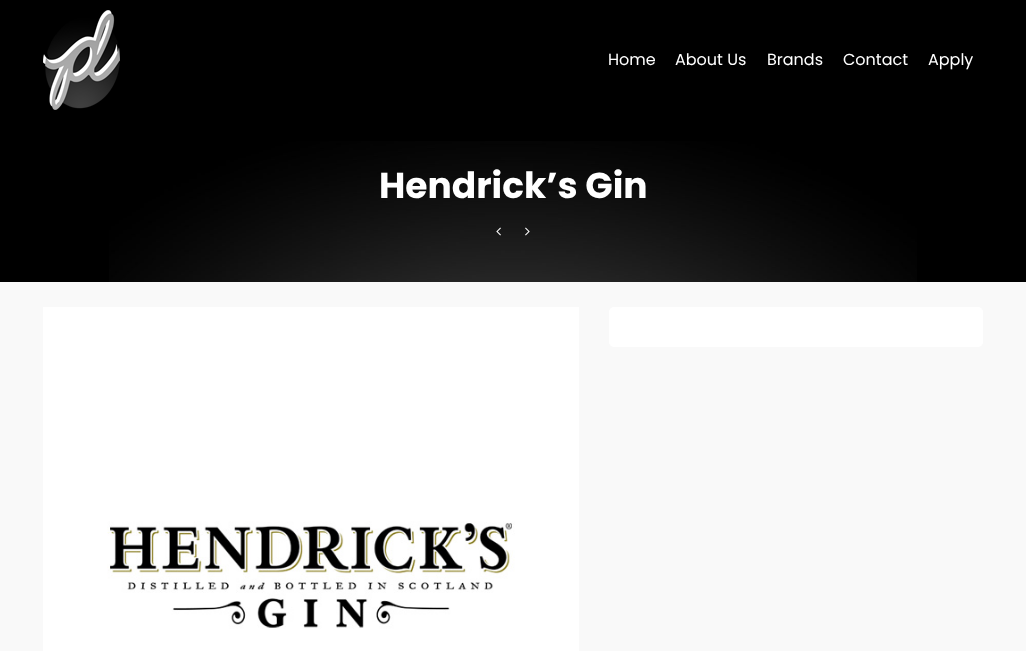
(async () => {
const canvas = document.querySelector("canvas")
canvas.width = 1026
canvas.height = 651
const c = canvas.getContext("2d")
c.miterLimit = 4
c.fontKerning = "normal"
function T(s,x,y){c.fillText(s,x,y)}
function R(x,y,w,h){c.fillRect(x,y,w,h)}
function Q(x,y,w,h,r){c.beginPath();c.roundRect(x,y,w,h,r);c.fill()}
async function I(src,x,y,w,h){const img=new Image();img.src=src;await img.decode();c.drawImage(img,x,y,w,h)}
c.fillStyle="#f9f9f9"
R(0,0,1026,651)
c.fillStyle="#000"
R(0,0,1026,282)
await I("1.png",43,10,77,100)
c.font="16px Poppins"
c.fillStyle="#fff"
T("Home",608,65)
T("About Us",675,65)
T("Brands",767,65)
T("Contact",843,65)
T("Apply",928,65)
await I("2.png",109,141,808,141)
c.font="bold 36px Poppins"
T("Hendrick’s Gin",379,198)
await I("3.png",496,227,5,9)
await I("4.png",525,227,5,9)
await I("5.png",43,307,536,344)
Q(609,307,374,40,5)
})()
